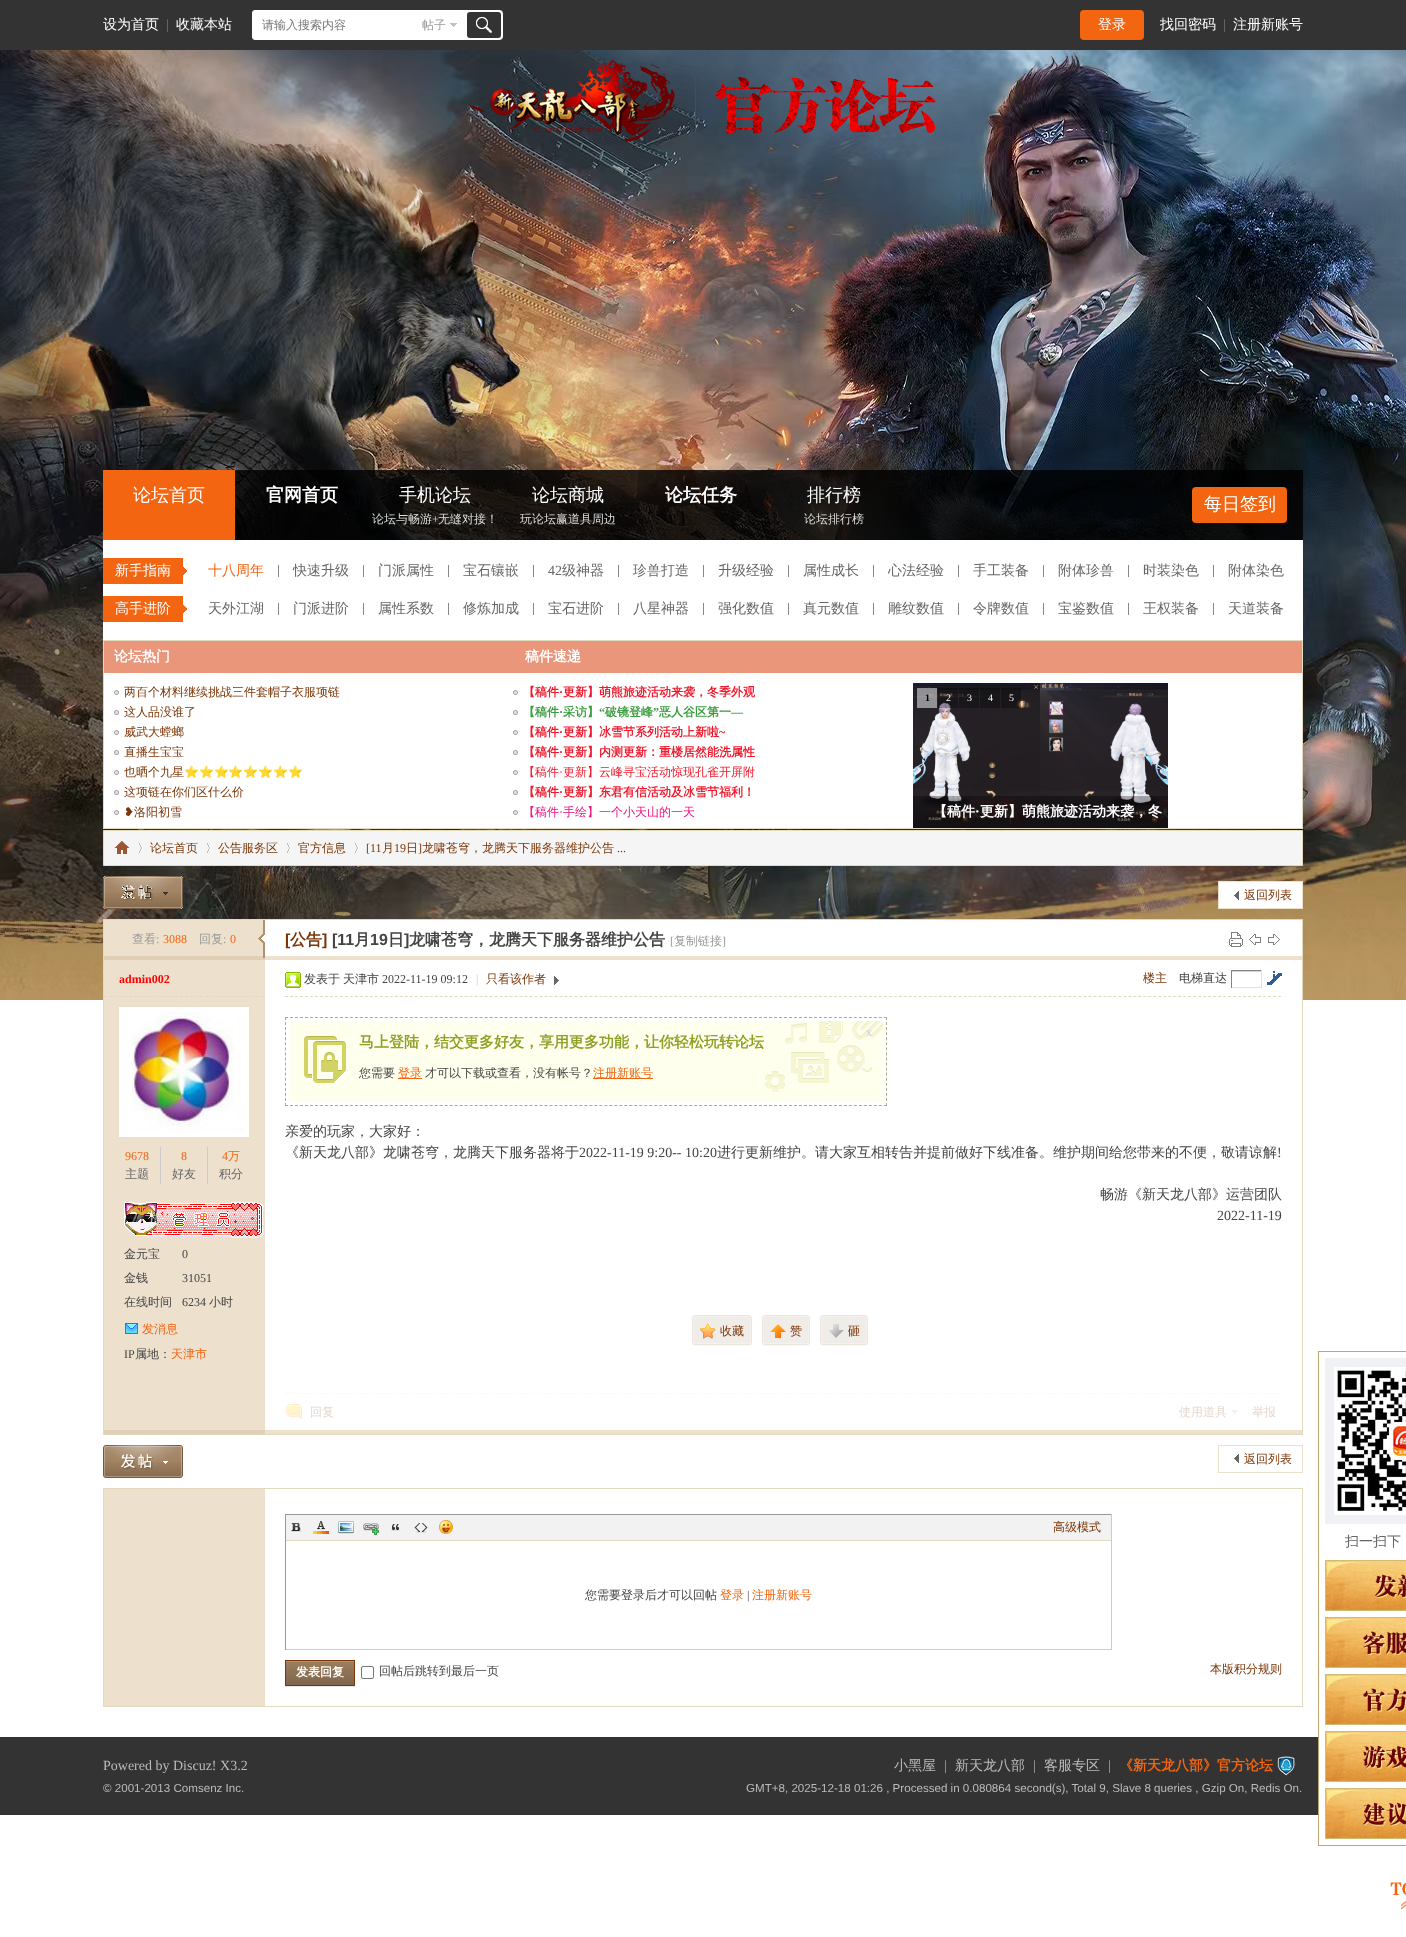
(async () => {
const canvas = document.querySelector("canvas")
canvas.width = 1406
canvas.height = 1937
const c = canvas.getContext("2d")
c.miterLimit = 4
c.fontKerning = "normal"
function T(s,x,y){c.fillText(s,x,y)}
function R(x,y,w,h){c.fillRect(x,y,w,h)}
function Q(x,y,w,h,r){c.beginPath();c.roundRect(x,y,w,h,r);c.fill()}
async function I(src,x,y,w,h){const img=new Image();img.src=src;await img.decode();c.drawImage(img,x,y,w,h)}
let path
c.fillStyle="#fff"
R(0,0,1406,1937)
await I("1.png",0,50,1406,950)
c.fillStyle="#333"
R(0,0,1406,50)
c.font="500 14px WenQuanYi Zen Hei"
c.fillStyle="#fff"
T("设为首页",103,29)
c.font="14px Liberation Serif"
c.fillStyle="#777"
T("|",166,29)
c.font="500 14px WenQuanYi Zen Hei"
c.fillStyle="#fff"
T("收藏本站",176,29)
Q(252,10,251,30,4)
c.beginPath()
c.roundRect(252,10,170,30,[4,0,0,4])
c.fill()
c.font="500 12px WenQuanYi Zen Hei"
c.fillStyle="#777"
T("请输入搜索内容",262,29)
await I("2.png",450,23,7,4)
c.fillStyle="#999"
T("帖子",422,29)
c.fillStyle="#333"
Q(467,12,34,26,3)
await I("3.png",476,17,16,16)
c.fillStyle="#f36511"
Q(1080,10,64,30,4)
c.font="500 14px WenQuanYi Zen Hei"
c.fillStyle="#fff"
T("登录",1098,29)
T("找回密码",1160,29)
c.font="14px Liberation Serif"
c.fillStyle="#777"
T("|",1223,29)
c.font="500 14px WenQuanYi Zen Hei"
c.fillStyle="#fff"
T("注册新账号",1233,29)
await I("4.png",470,60,466,82)
c.fillStyle="#000000cc"
R(235,470,1068,70)
c.fillStyle="#f36511"
R(103,470,132,70)
c.font="500 18px WenQuanYi Zen Hei"
c.fillStyle="#fff"
T("论坛首页",133,501)
c.font="bold 18px WenQuanYi Zen Hei"
T("官网首页",266,501)
c.font="500 18px WenQuanYi Zen Hei"
T("手机论坛",399,501)
c.font="500 12px WenQuanYi Zen Hei"
c.fillStyle="#ddd"
T("论坛与畅游",372,523)
c.font="12px Liberation Serif"
T("+",432,523)
c.font="500 12px WenQuanYi Zen Hei"
T("无缝对接！",438,523)
c.font="500 18px WenQuanYi Zen Hei"
c.fillStyle="#fff"
T("论坛商城",532,501)
c.font="500 12px WenQuanYi Zen Hei"
c.fillStyle="#ddd"
T("玩论坛赢道具周边",520,523)
c.font="bold 18px WenQuanYi Zen Hei"
c.fillStyle="#fff"
T("论坛任务",665,501)
c.font="500 18px WenQuanYi Zen Hei"
T("排行榜",807,501)
c.font="500 12px WenQuanYi Zen Hei"
c.fillStyle="#ddd"
T("论坛排行榜",804,523)
c.fillStyle="#f36511"
Q(1192,487,95,36,4)
c.font="500 18px WenQuanYi Zen Hei"
c.fillStyle="#fff"
T("每日签到",1204,510)
R(103,540,1200,100)
c.fillStyle="#f36511"
R(103,558,84,26)
await I("5.png",183,558,5,26)
c.font="500 14px WenQuanYi Zen Hei"
c.fillStyle="#fff"
T("新手指南",115,575)
c.fillStyle="#888"
R(278,565,1,12)
c.fillStyle="#f36511"
T("十八周年",208,575)
c.fillStyle="#888"
R(363,565,1,12)
c.fillStyle="#666"
T("快速升级",293,575)
c.fillStyle="#888"
R(448,565,1,12)
c.fillStyle="#666"
T("门派属性",378,575)
c.fillStyle="#888"
R(533,565,1,12)
c.fillStyle="#666"
T("宝石镶嵌",463,575)
c.fillStyle="#888"
R(618,565,1,12)
c.font="14px Liberation Serif"
c.fillStyle="#666"
T("42",548,575)
c.font="500 14px WenQuanYi Zen Hei"
T("级神器",562,575)
c.fillStyle="#888"
R(703,565,1,12)
c.fillStyle="#666"
T("珍兽打造",633,575)
c.fillStyle="#888"
R(788,565,1,12)
c.fillStyle="#666"
T("升级经验",718,575)
c.fillStyle="#888"
R(873,565,1,12)
c.fillStyle="#666"
T("属性成长",803,575)
c.fillStyle="#888"
R(958,565,1,12)
c.fillStyle="#666"
T("心法经验",888,575)
c.fillStyle="#888"
R(1043,565,1,12)
c.fillStyle="#666"
T("手工装备",973,575)
c.fillStyle="#888"
R(1128,565,1,12)
c.fillStyle="#666"
T("附体珍兽",1058,575)
c.fillStyle="#888"
R(1213,565,1,12)
c.fillStyle="#666"
T("时装染色",1143,575)
T("附体染色",1228,575)
c.fillStyle="#f36511"
R(103,596,84,26)
await I("5.png",183,596,5,26)
c.fillStyle="#fff"
T("高手进阶",115,613)
c.fillStyle="#888"
R(278,603,1,12)
c.fillStyle="#666"
T("天外江湖",208,613)
c.fillStyle="#888"
R(363,603,1,12)
c.fillStyle="#666"
T("门派进阶",293,613)
c.fillStyle="#888"
R(448,603,1,12)
c.fillStyle="#666"
T("属性系数",378,613)
c.fillStyle="#888"
R(533,603,1,12)
c.fillStyle="#666"
T("修炼加成",463,613)
c.fillStyle="#888"
R(618,603,1,12)
c.fillStyle="#666"
T("宝石进阶",548,613)
c.fillStyle="#888"
R(703,603,1,12)
c.fillStyle="#666"
T("八星神器",633,613)
c.fillStyle="#888"
R(788,603,1,12)
c.fillStyle="#666"
T("强化数值",718,613)
c.fillStyle="#888"
R(873,603,1,12)
c.fillStyle="#666"
T("真元数值",803,613)
c.fillStyle="#888"
R(958,603,1,12)
c.fillStyle="#666"
T("雕纹数值",888,613)
c.fillStyle="#888"
R(1043,603,1,12)
c.fillStyle="#666"
T("令牌数值",973,613)
c.fillStyle="#888"
R(1128,603,1,12)
c.fillStyle="#666"
T("宝鉴数值",1058,613)
c.fillStyle="#888"
R(1213,603,1,12)
c.fillStyle="#666"
T("王权装备",1143,613)
T("天道装备",1228,613)
c.fillStyle="#fff"
R(104,673,1198,155)
c.strokeStyle="#e2dabf"
c.strokeRect(103.5,640.5,1199,188)
c.fillStyle="#e9967a"
R(104,641,1198,32)
c.font="bold 14px WenQuanYi Zen Hei"
c.fillStyle="#fff"
T("论坛热门",114,661)
T("稿件速递",525,661)
await I("6.png",114,690,5,5)
c.font="500 12px WenQuanYi Zen Hei"
c.fillStyle="#7b3507"
T("两百个材料继续挑战三件套帽子衣服项链",124,696)
await I("6.png",114,710,5,5)
T("这人品没谁了",124,716)
await I("6.png",114,730,5,5)
T("威武大螳螂",124,736)
await I("6.png",114,750,5,5)
T("直播生宝宝",124,756)
await I("6.png",114,770,5,5)
T("也晒个九星",124,776)
c.font="12px Noto Color Emoji"
T("⭐️⭐️⭐️⭐️⭐️⭐️⭐️⭐",184,776)
await I("6.png",114,790,5,5)
c.font="500 12px WenQuanYi Zen Hei"
T("这项链在你们区什么价",124,796)
await I("6.png",114,810,5,5)
c.font="12px DejaVu Sans"
T("❥",124,816)
c.font="500 12px WenQuanYi Zen Hei"
T("洛阳初雪",134,816)
await I("6.png",513,690,5,5)
c.font="bold 12px WenQuanYi Zen Hei"
c.fillStyle="#ee1b2e"
T("【稿件",523,696)
c.font="bold 12px Liberation Serif"
T("·",559,696)
c.font="bold 12px WenQuanYi Zen Hei"
T("更新】萌熊旅迹活动来袭，冬季外观",563,696)
await I("6.png",513,710,5,5)
c.fillStyle="#3c9d40"
T("【稿件",523,716)
c.font="bold 12px Liberation Serif"
T("·",559,716)
c.font="bold 12px WenQuanYi Zen Hei"
T("采访】",563,716)
c.font="bold 12px Liberation Serif"
T("“",599,716)
c.font="bold 12px WenQuanYi Zen Hei"
T("破镜登峰",605,716)
c.font="bold 12px Liberation Serif"
T("”",653,716)
c.font="bold 12px WenQuanYi Zen Hei"
T("恶人谷区第一",659,716)
c.font="bold 12px Liberation Serif"
T("—",731,716)
await I("6.png",513,730,5,5)
c.font="bold 12px WenQuanYi Zen Hei"
c.fillStyle="#ee1b2e"
T("【稿件",523,736)
c.font="bold 12px Liberation Serif"
T("·",559,736)
c.font="bold 12px WenQuanYi Zen Hei"
T("更新】冰雪节系列活动上新啦",563,736)
c.font="bold 12px Liberation Serif"
T("~",719,736)
await I("6.png",513,750,5,5)
c.font="bold 12px WenQuanYi Zen Hei"
T("【稿件",523,756)
c.font="bold 12px Liberation Serif"
T("·",559,756)
c.font="bold 12px WenQuanYi Zen Hei"
T("更新】内测更新：重楼居然能洗属性",563,756)
await I("6.png",513,770,5,5)
c.font="500 12px WenQuanYi Zen Hei"
T("【稿件",523,776)
c.font="12px Liberation Serif"
T("·",559,776)
c.font="500 12px WenQuanYi Zen Hei"
T("更新】云峰寻宝活动惊现孔雀开屏附",563,776)
await I("6.png",513,790,5,5)
c.font="bold 12px WenQuanYi Zen Hei"
T("【稿件",523,796)
c.font="bold 12px Liberation Serif"
T("·",559,796)
c.font="bold 12px WenQuanYi Zen Hei"
T("更新】东君有信活动及冰雪节福利！",563,796)
await I("6.png",513,810,5,5)
c.font="500 12px WenQuanYi Zen Hei"
c.fillStyle="#ec1282"
T("【稿件",523,816)
c.font="12px Liberation Serif"
T("·",559,816)
c.font="500 12px WenQuanYi Zen Hei"
T("手绘】一个小天山的一天",563,816)
await I("7.png",913,683,255,145)
c.fillStyle="#ffffff80"
R(917,688,20,20)
c.font="bold 10px Liberation Serif"
c.fillStyle="#000"
T("1",925,701)
c.fillStyle="#0000004d"
R(938,688,20,20)
c.font="10px Liberation Serif"
c.fillStyle="#fff"
T("2",946,701)
c.fillStyle="#0000004d"
R(959,688,20,20)
c.fillStyle="#fff"
T("3",967,701)
c.fillStyle="#0000004d"
R(980,688,20,20)
c.fillStyle="#fff"
T("4",988,701)
c.fillStyle="#0000004d"
R(1001,688,20,20)
c.fillStyle="#fff"
T("5",1009,701)
c.fillStyle="#0000004d"
R(913,796,255,32)
c.font="bold 14px WenQuanYi Zen Hei"
c.fillStyle="#fff"
T("【稿件",933,816)
c.font="bold 14px Liberation Serif"
T("·",975,816)
c.font="bold 14px WenQuanYi Zen Hei"
T("更新】萌熊旅迹活动来袭，冬",980,816)
c.fillStyle="#f5f5f5"
c.beginPath()
c.rect(103.5,830.5,1199,35)
c.fill()
c.stroke()
await I("8.png",114,841,16,13)
await I("9.png",139,843,4,10)
c.font="500 12px WenQuanYi Zen Hei"
c.fillStyle="#7b3507"
T("论坛首页",150,852)
await I("9.png",207,843,4,10)
T("公告服务区",218,852)
await I("9.png",287,843,4,10)
T("官方信息",298,852)
await I("9.png",355,843,4,10)
c.font="12px Liberation Serif"
T("[11",366,852)
c.font="500 12px WenQuanYi Zen Hei"
T("月",382,852)
c.font="12px Liberation Serif"
T("19",394,852)
c.font="500 12px WenQuanYi Zen Hei"
T("日",406,852)
c.font="12px Liberation Serif"
T("]",418,852)
c.font="500 12px WenQuanYi Zen Hei"
T("龙啸苍穹，龙腾天下服务器维护公告",422,852)
c.font="12px Liberation Serif"
T("...",617,852)
await I("10.png",103,876,80,33)
c.fillStyle="#fff"
R(1219,882,83,26)
await I("11.png",1234,891,5,9)
c.strokeStyle="#ede1ce"
c.strokeRect(1218.5,881.5,84,27)
c.font="500 12px WenQuanYi Zen Hei"
c.fillStyle="#7b3507"
T("返回列表",1244,899)
c.fillStyle="#fff"
R(265,920,1037,80)
c.strokeStyle="#e2dabf"
c.strokeRect(103.5,919.5,1199,515)
c.fillStyle="#ede1ce"
R(104,920,159,36)
c.fillStyle="#999"
T("查看",132,943)
c.font="12px Liberation Serif"
T(":",156,943)
c.fillStyle="#f36511"
T("3088",163,943)
c.font="500 12px WenQuanYi Zen Hei"
c.fillStyle="#999"
T("回复",199,943)
c.font="12px Liberation Serif"
T(":",223,943)
c.fillStyle="#f36511"
T("0",230,943)
c.fillStyle="#e0cfb5"
R(104,956,161,4)
await I("12.png",258,920,7,38)
c.font="bold 16px Liberation Sans"
c.fillStyle="#7b3507"
T("[",285,945)
c.font="bold 16px WenQuanYi Zen Hei"
T("公告",290,945)
c.font="bold 16px Liberation Sans"
T("]",322,945)
c.fillStyle="#444"
T("[11",332,945)
c.font="bold 16px WenQuanYi Zen Hei"
T("月",354,945)
c.font="bold 16px Liberation Sans"
T("19",370,945)
c.font="bold 16px WenQuanYi Zen Hei"
T("日",388,945)
c.font="bold 16px Liberation Sans"
T("]",404,945)
c.font="bold 16px WenQuanYi Zen Hei"
T("龙啸苍穹，龙腾天下服务器维护公告",409,945)
c.font="12px Liberation Serif"
c.fillStyle="#999"
T("[",670,945)
c.font="500 12px WenQuanYi Zen Hei"
T("复制链接",674,945)
c.font="12px Liberation Serif"
T("]",722,945)
await I("13.png",1229,932,14,15)
await I("14.png",1249,934,12,11)
await I("15.png",1268,934,12,11)
c.fillStyle="#ede1ce"
R(265,956,1037,4)
R(104,960,161,470)
path = new Path2D("M104 996.5h160")
c.setLineDash([3,2.06])
c.stroke(path)
c.font="bold 12px Liberation Serif"
c.fillStyle="#f00"
T("admin002",119,983)
c.fillStyle="#fff"
R(119,1007,130,130)
await I("16.png",132,1012,112,120)
c.fillStyle="#ccc"
R(160,1147,1,37)
c.font="12px Liberation Serif"
c.fillStyle="#f36511"
T("9678",125,1160)
c.font="500 12px WenQuanYi Zen Hei"
c.fillStyle="#666"
T("主题",125,1178)
c.fillStyle="#ccc"
R(207,1147,1,37)
c.font="12px Liberation Serif"
c.fillStyle="#f36511"
T("8",181,1160)
c.font="500 12px WenQuanYi Zen Hei"
c.fillStyle="#666"
T("好友",172,1178)
c.font="12px Liberation Serif"
c.fillStyle="#f36511"
T("4",222,1160)
c.font="500 12px WenQuanYi Zen Hei"
T("万",228,1160)
c.fillStyle="#666"
T("积分",219,1178)
await I("17.png",124,1202,140,36)
c.fillStyle="#444"
T("金元宝",124,1258)
c.font="12px Liberation Serif"
T("0",182,1258)
c.font="500 12px WenQuanYi Zen Hei"
T("金钱",124,1282)
c.font="12px Liberation Serif"
T("31051",182,1282)
c.font="500 12px WenQuanYi Zen Hei"
T("在线时间",124,1306)
c.font="12px Liberation Serif"
T("6234",182,1306)
c.font="500 12px WenQuanYi Zen Hei"
T("小时",209,1306)
await I("18.png",125,1323,13,11)
c.fillStyle="#f36511"
T("发消息",142,1333)
c.font="12px Liberation Serif"
c.fillStyle="#444"
T("IP",124,1358)
c.font="500 12px WenQuanYi Zen Hei"
T("属地：",135,1358)
c.fillStyle="#f36511"
T("天津市",171,1358)
path = new Path2D("M285 996.5h997")
c.setLineDash([3,1.99])
c.stroke(path)
await I("19.png",285,972,16,16)
c.fillStyle="#444"
T("发表于",304,983)
T("天津市",343,983)
c.font="12px Liberation Serif"
T("2022-11-19 09:12",382,983)
c.fillStyle="#ccc"
T("|",476,983)
c.font="500 12px WenQuanYi Zen Hei"
c.fillStyle="#7b3507"
T("只看该作者",486,983)
await I("20.png",554,976,5,9)
T("楼主",1143,982)
c.fillStyle="#444"
T("电梯直达",1179,982)
c.fillStyle="#d4d4d4"
R(1231,971,31,1)
c.fillStyle="#848484"
R(1231,970,31,1)
c.fillStyle="#e0e0e0"
R(1261,970,1,18)
R(1231,987,31,1)
c.fillStyle="#848484"
R(1231,970,1,18)
await I("21.png",1267,971,15,14)
c.fillStyle="#ffe"
R(285,1017,602,89)
await I("22.png",765,1021,118,72)
path = new Path2D("M285 1017.5h602")
c.strokeStyle="#aaaa92"
c.stroke(path)
path = new Path2D("M886.5 1017v89")
c.setLineDash([3,2.06])
c.stroke(path)
path = new Path2D("M285 1105.5h602")
c.setLineDash([3,1.99])
c.stroke(path)
path = new Path2D("M285.5 1017v89")
c.setLineDash([3,2.06])
c.stroke(path)
await I("23.png",304,1036,42,48)
c.strokeStyle="#fff"
c.lineWidth=3
c.setLineDash([])
c.strokeRect(287.5,1019.5,597,84)
c.font="12px Liberation Serif"
c.fillStyle="#ccc"
T("x",866,1036)
c.font="bold 15px WenQuanYi Zen Hei"
c.fillStyle="#8ca226"
T("马上登陆，结交更多好友，享用更多功能，让你轻松玩转论坛",359,1047)
c.font="500 12px WenQuanYi Zen Hei"
c.fillStyle="#444"
T("您需要",359,1077)
c.fillStyle="#f36511"
R(398,1078,24,1)
T("登录",398,1077)
c.fillStyle="#444"
T("才可以下载或查看，没有帐号？",425,1077)
c.fillStyle="#f36511"
R(593,1078,60,1)
T("注册新账号",593,1077)
c.font="500 14px WenQuanYi Zen Hei"
c.fillStyle="#444"
T("亲爱的玩家，大家好：",285,1136)
T("《新天龙八部》龙啸苍穹，龙腾天下服务器将于",285,1157)
c.font="14px Liberation Serif"
T("2022-11-19 9:20-- 10:20",579,1157)
c.font="500 14px WenQuanYi Zen Hei"
T("进行更新维护。请大家互相转告并提前做好下线准备。维护期间给您带来的不便，敬请谅解",717,1157)
c.font="14px Liberation Serif"
T("!",1277,1157)
c.font="500 14px WenQuanYi Zen Hei"
T("畅游《新天龙八部》运营团队",1100,1199)
c.font="14px Liberation Serif"
T("2022-11-19",1217,1220)
await I("24.png",692,1315,26,31)
await I("25.png",718,1315,34,31)
await I("26.png",700,1323,16,16)
c.font="500 12px WenQuanYi Zen Hei"
c.fillStyle="#7b3507"
T("收藏",720,1335)
await I("24.png",762,1315,26,31)
await I("27.png",788,1315,22,31)
await I("28.png",770,1324,16,14)
T("赞",790,1335)
await I("24.png",820,1315,26,31)
await I("27.png",846,1315,22,31)
await I("29.png",828,1324,16,14)
T("砸",848,1335)
path = new Path2D("M285 1393.5h997")
c.strokeStyle="#f9f8f2"
c.lineWidth=1
c.setLineDash([3,1.99])
c.stroke(path)
await I("30.png",286,1404,16,15)
c.fillStyle="#e5d7cd"
T("回复",310,1416)
T("使用道具",1179,1416)
await I("31.png",1231,1410,7,4)
T("举报",1252,1416)
c.fillStyle="#e0cfb5"
R(104,1430,161,4)
c.fillStyle="#ede1ce"
R(265,1430,1037,4)
await I("32.png",103,1445,80,33)
await I("11.png",1234,1454,5,9)
c.strokeStyle="#ede1ce"
c.setLineDash([])
c.strokeRect(1218.5,1445.5,84,27)
c.fillStyle="#7b3507"
T("返回列表",1244,1463)
c.strokeStyle="#e2dabf"
c.strokeRect(103.5,1488.5,1199,218)
c.fillStyle="#e0cfb5"
R(264,1488,1,1)
c.fillStyle="#ede1ce"
R(104,1489,161,217)
c.fillStyle="#999"
R(285,1514,827,1)
c.fillStyle="#ccc"
R(1111,1514,1,136)
R(285,1649,827,1)
c.fillStyle="#999"
R(285,1514,1,136)
c.fillStyle="#f2f2f2"
R(286,1515,825,25)
c.fillStyle="#e2dabf"
R(286,1540,825,1)
await I("33.png",291,1523,11,9)
await I("34.png",313,1521,16,13)
await I("35.png",338,1521,16,13)
await I("36.png",363,1523,17,12)
await I("37.png",391,1524,9,7)
await I("38.png",414,1523,14,10)
await I("39.png",438,1520,15,14)
c.fillStyle="#7b3507"
T("高级模式",1053,1531)
c.fillStyle="#444"
T("您需要登录后才可以回帖",585,1599)
c.fillStyle="#f36511"
T("登录",720,1599)
c.font="12px Liberation Serif"
c.fillStyle="#444"
T("|",747,1599)
c.font="500 12px WenQuanYi Zen Hei"
c.fillStyle="#f36511"
T("注册新账号",752,1599)
c.fillStyle="#e5e5e5"
R(285,1686,70,1)
await I("40.png",286,1661,68,24)
c.strokeStyle="#7b3507"
c.strokeRect(285.5,1660.5,69,25)
c.font="bold 12px WenQuanYi Zen Hei"
c.fillStyle="#fff"
T("发表回复",296,1676)
c.beginPath()
c.roundRect(361.5,1666.5,12,12,1.5)
c.strokeStyle="#767676"
c.stroke()
c.font="500 12px WenQuanYi Zen Hei"
c.fillStyle="#444"
T("回帖后跳转到最后一页",379,1675)
c.fillStyle="#7b3507"
T("本版积分规则",1210,1673)
c.strokeStyle="#bea672"
c.strokeRect(1318.5,1351.5,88,494)
c.fillStyle="#f0f1f5"
R(1325,1358,81,166)
await I("41.png",1334,1367,72,148)
c.font="500 14px WenQuanYi Zen Hei"
c.fillStyle="#666"
T("扫一扫下",1345,1546)
await I("42.png",1326,1561,80,49)
c.strokeStyle="#d2bc74"
c.strokeRect(1325.5,1560.5,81,50)
await I("43.png",1326,1618,80,49)
c.strokeRect(1325.5,1617.5,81,50)
await I("44.png",1326,1675,80,49)
c.strokeRect(1325.5,1674.5,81,50)
await I("45.png",1326,1732,80,49)
c.strokeRect(1325.5,1731.5,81,50)
await I("46.png",1326,1789,80,49)
c.strokeRect(1325.5,1788.5,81,50)
await I("47.png",1390,1882,16,28)
c.fillStyle="#333"
R(0,1737,1318,78)
c.font="14px Liberation Serif"
c.fillStyle="#bbb"
T("Powered by Discuz! X3.2",103,1770)
c.font="11.6px Liberation Sans"
T("© 2001-2013 Comsenz Inc.",103,1792)
c.font="500 14px WenQuanYi Zen Hei"
T("小黑屋",894,1770)
c.font="14px Liberation Serif"
c.fillStyle="#aaa"
T("|",944,1770)
c.font="500 14px WenQuanYi Zen Hei"
c.fillStyle="#bbb"
T("新天龙八部",955,1770)
c.font="14px Liberation Serif"
c.fillStyle="#aaa"
T("|",1033,1770)
c.font="500 14px WenQuanYi Zen Hei"
c.fillStyle="#bbb"
T("客服专区",1044,1770)
c.font="14px Liberation Serif"
c.fillStyle="#aaa"
T("|",1108,1770)
c.font="bold 14px WenQuanYi Zen Hei"
c.fillStyle="#f36511"
T("《新天龙八部》官方论坛",1119,1770)
await I("48.png",1277,1756,19,20)
c.font="11.6px Liberation Sans"
c.fillStyle="#bbb"
T("GMT+8, 2025-12-18 01:26 , Processed in 0.080864 second(s), Total 9, Slave 8 queries , Gzip On, Redis On.",746,1792)
})()
